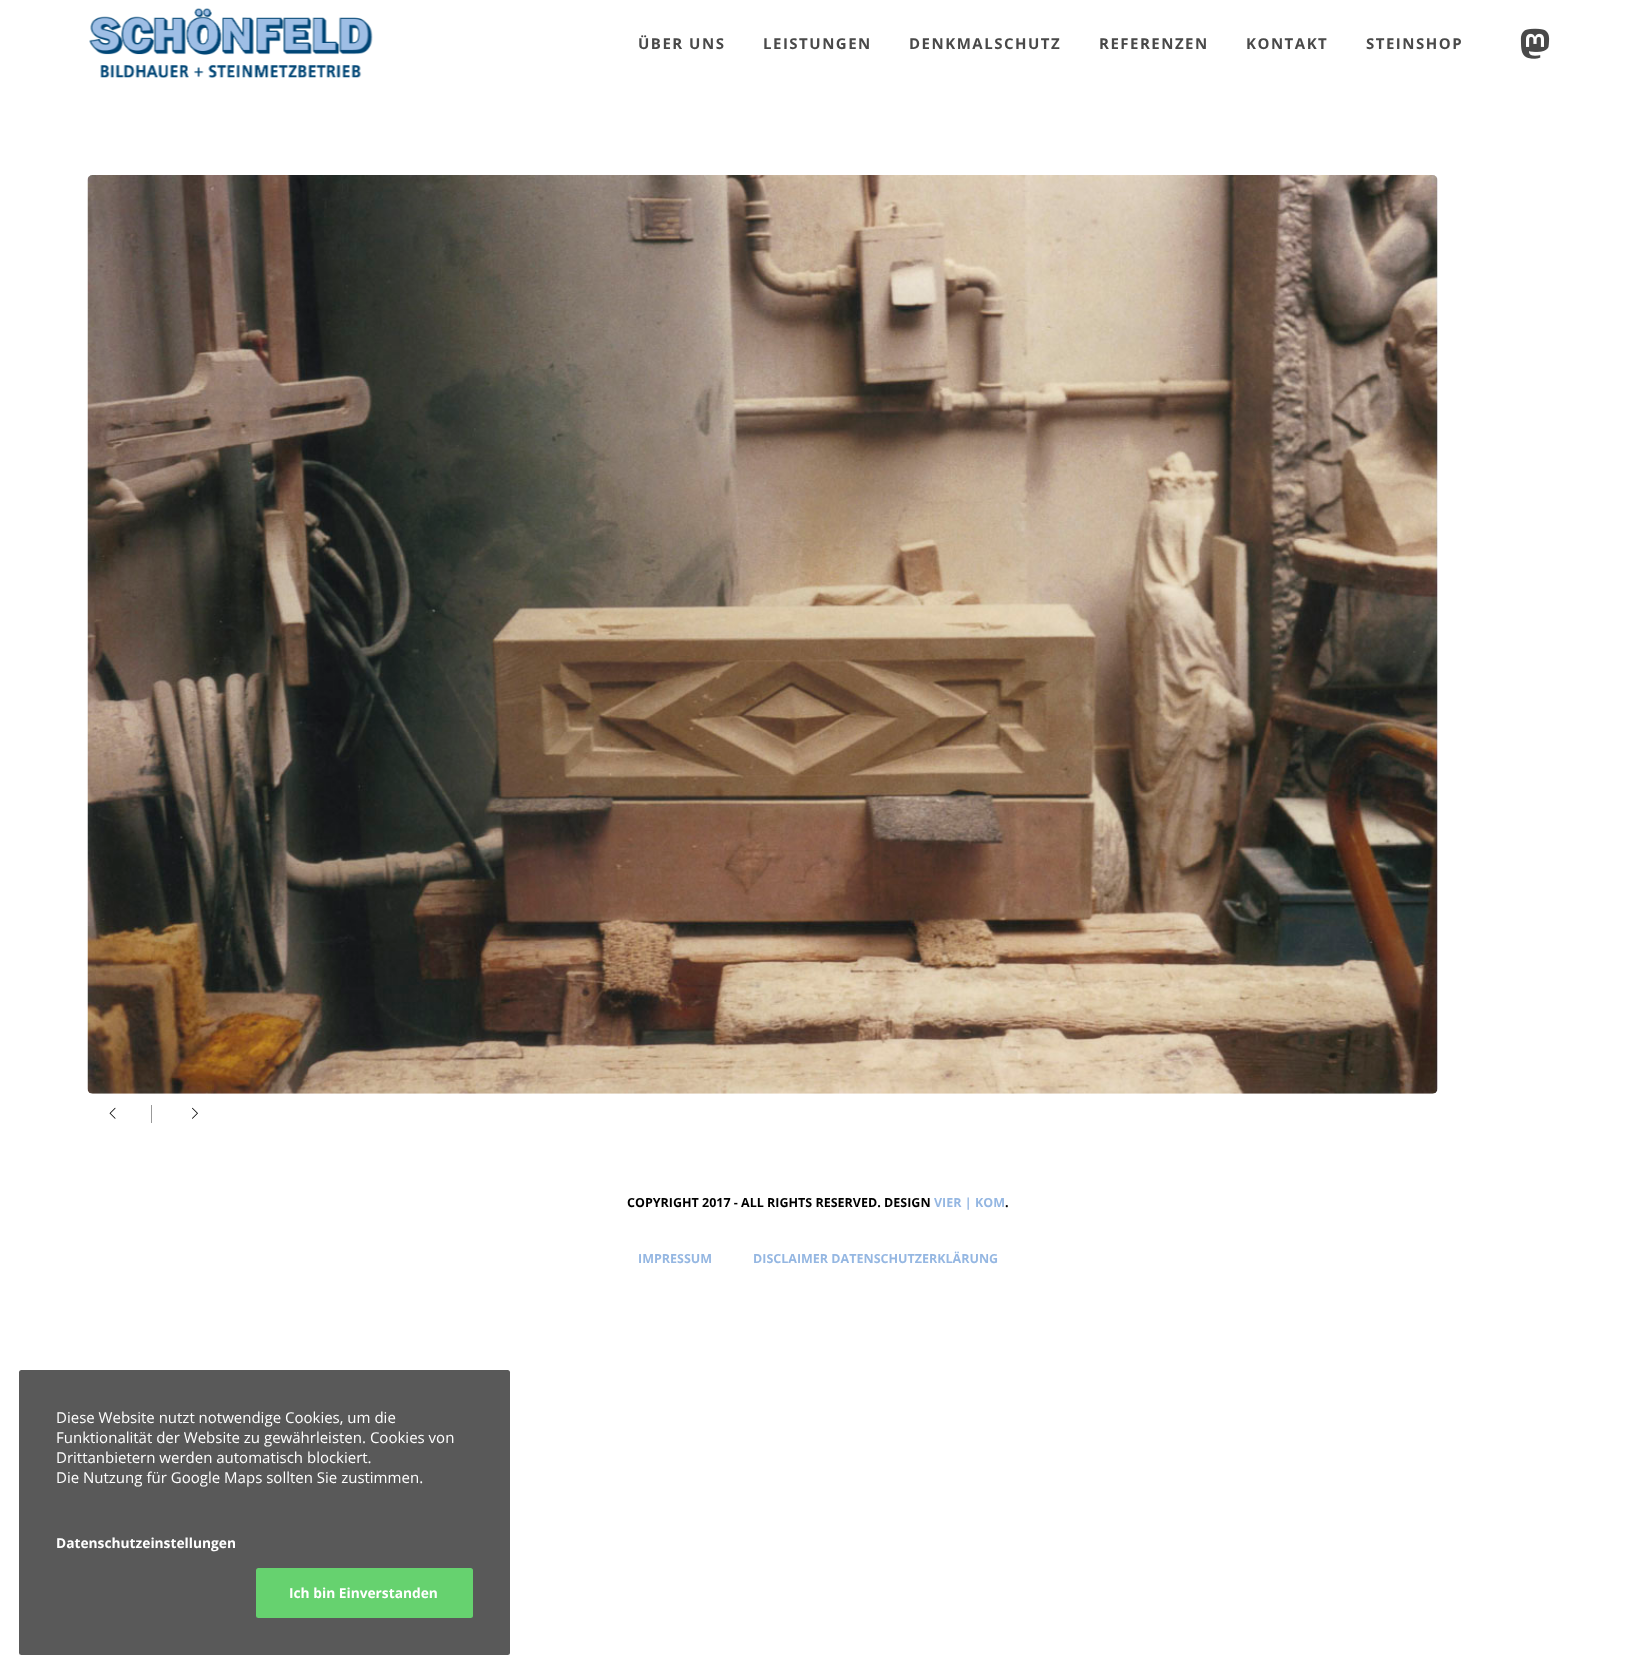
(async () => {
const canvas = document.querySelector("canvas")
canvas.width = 1636
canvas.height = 1673
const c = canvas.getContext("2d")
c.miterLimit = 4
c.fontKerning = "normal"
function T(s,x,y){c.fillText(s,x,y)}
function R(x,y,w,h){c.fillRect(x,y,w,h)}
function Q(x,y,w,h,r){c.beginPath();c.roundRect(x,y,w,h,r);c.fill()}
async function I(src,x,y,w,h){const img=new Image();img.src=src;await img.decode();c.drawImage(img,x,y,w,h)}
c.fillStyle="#fff"
R(0,0,1636,1673)
await I("1.png",89,8,284,70)
c.letterSpacing="1.5px"
c.font="bold 15px Open Sans"
c.fillStyle="#494949"
T("ÜBER UNS",638,49)
T("LEISTUNGEN",763,49)
T("DENKMALSCHUTZ",909,49)
T("REFERENZEN",1099,49)
T("KONTAKT",1246,49)
T("STEINSHOP",1366,49)
await I("2.png",1520,28,30,31)
await I("3.png",87,175,1351,919)
await I("4.png",109,1107,7,12)
c.fillStyle="#999"
R(151,1105,1,18)
await I("5.png",192,1107,6,12)
c.letterSpacing="0px"
c.font="bold 12.5px Open Sans"
c.fillStyle="#000"
T("COPYRIGHT 2017 - ALL RIGHTS RESERVED. DESIGN",627,1207)
c.fillStyle="#95b7e2"
T("VIER | KOM",934,1207)
c.fillStyle="#000"
T(".",1005,1207)
c.fillStyle="#95b7e2"
T("IMPRESSUM",638,1263)
T("DISCLAIMER DATENSCHUTZERKLÄRUNG",753,1263)
c.fillStyle="#595959"
Q(19,1370,491,285,2.5)
c.font="15px Open Sans"
c.fillStyle="#fff"
T("Diese Website nutzt notwendige Cookies, um die",56,1423)
T("Funktionalität der Website zu gewährleisten. Cookies von",56,1443)
T("Drittanbietern werden automatisch blockiert.",56,1463)
T("Die Nutzung für Google Maps sollten Sie zustimmen.",56,1483)
c.font="bold 13.75px Open Sans"
T("Datenschutzeinstellungen",56,1548)
c.fillStyle="#66d26f"
Q(256,1568,217,50,2.5)
c.fillStyle="#fff"
T("Ich bin Einverstanden",289,1598)
})()
